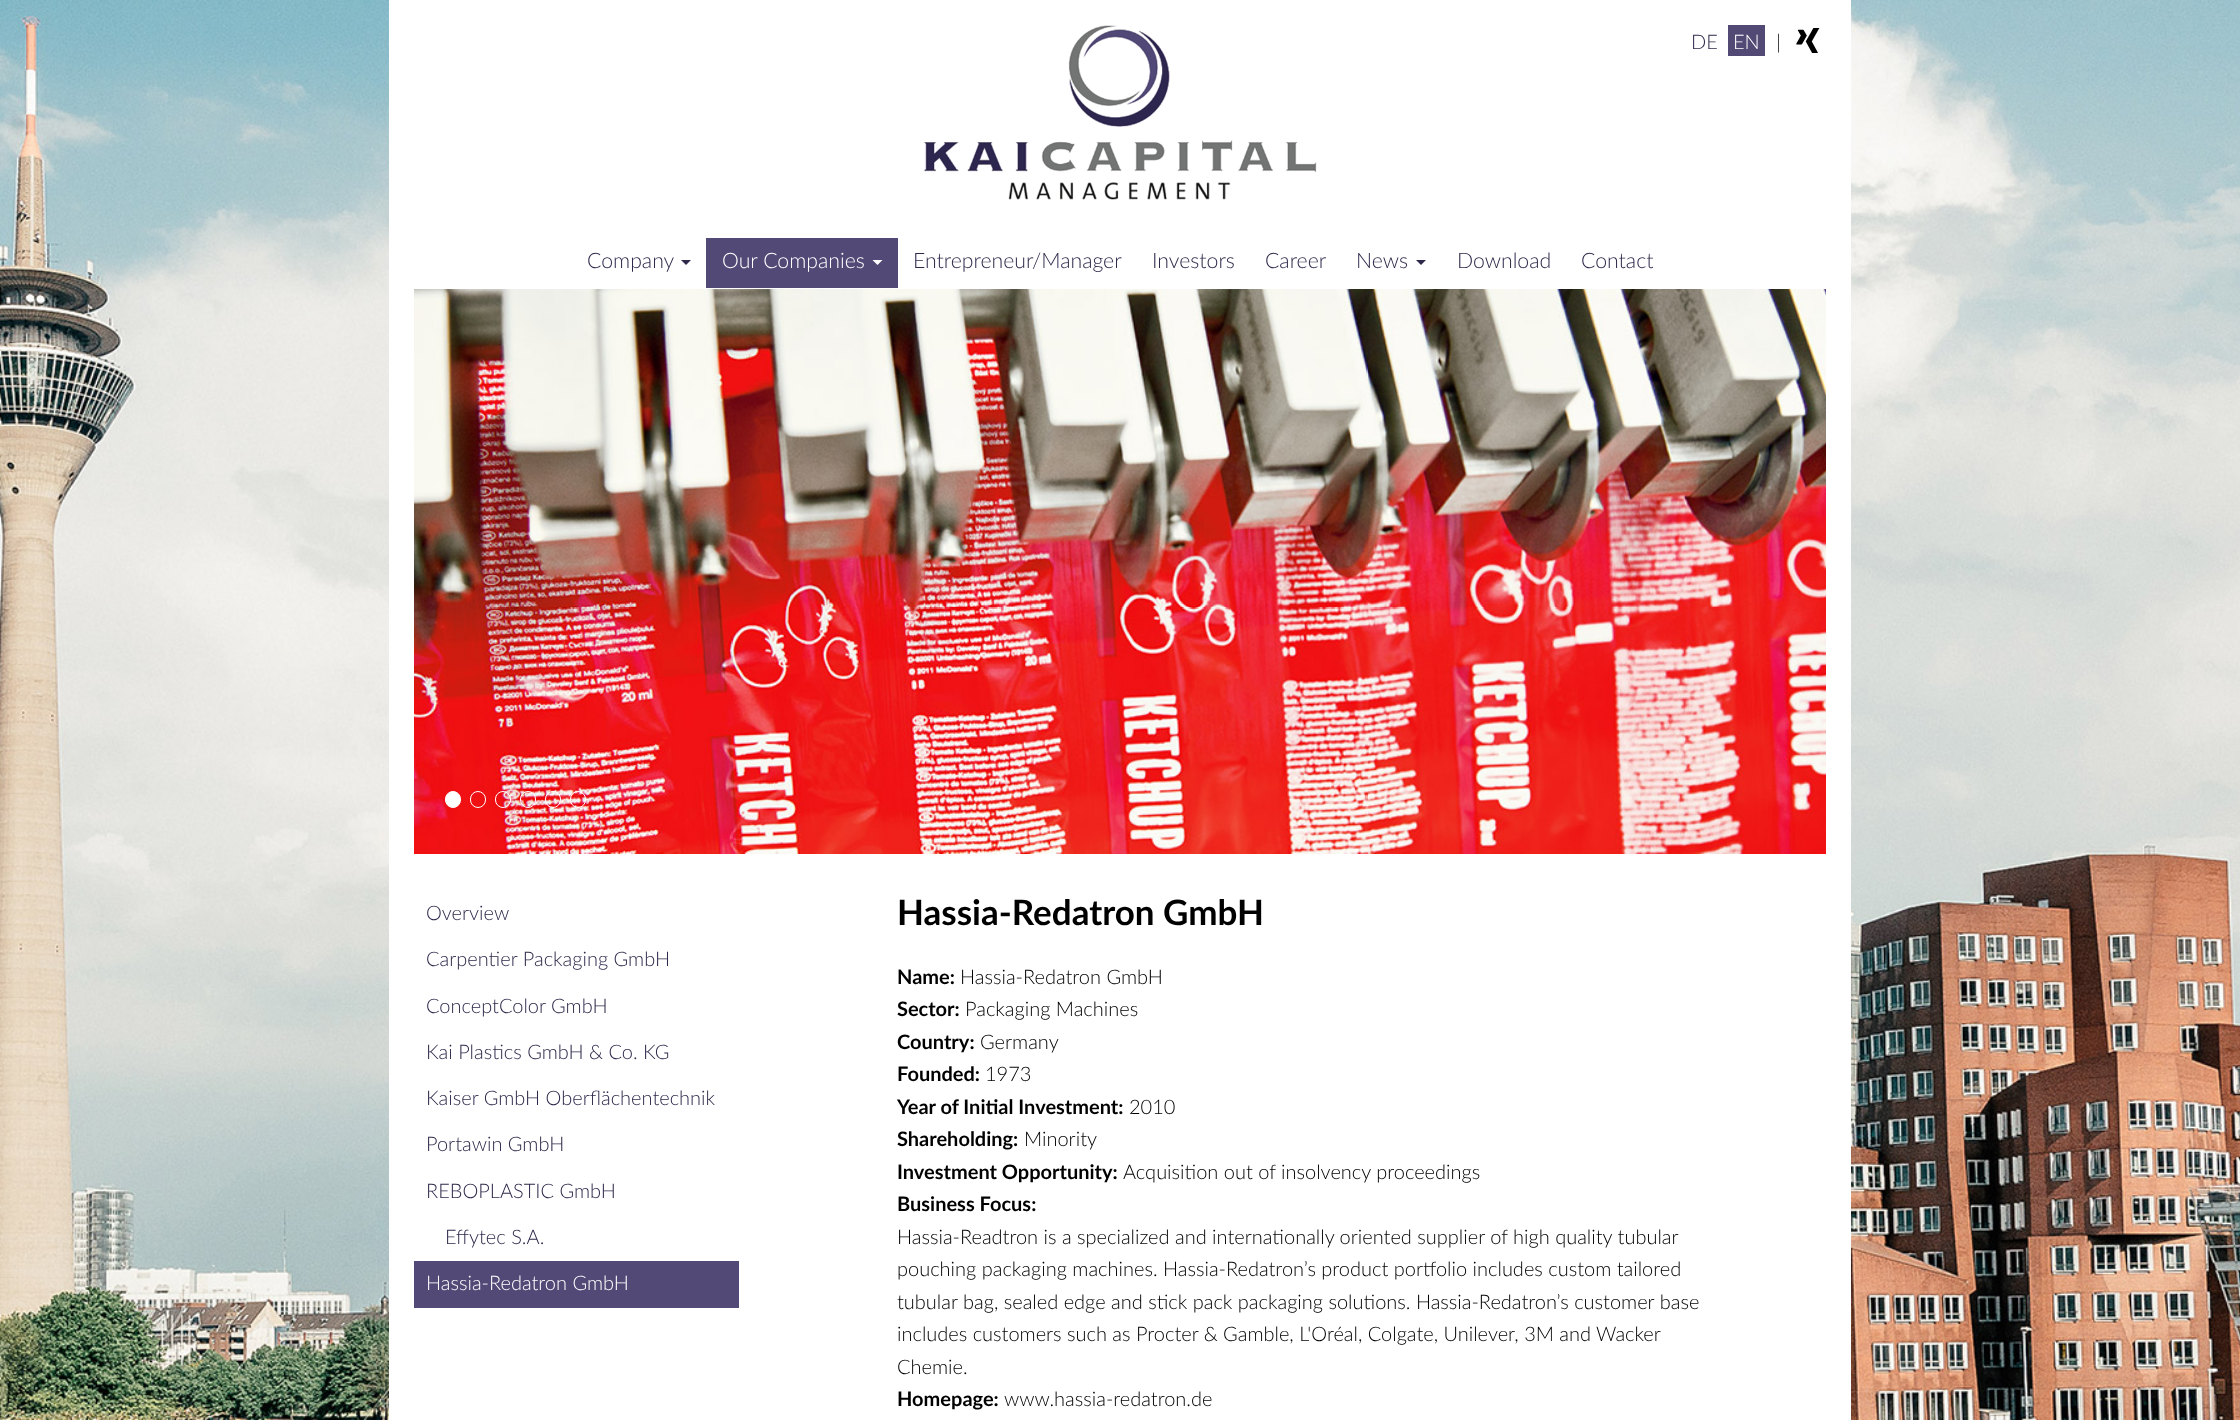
(async () => {
const canvas = document.querySelector("canvas")
canvas.width = 2240
canvas.height = 1420
const c = canvas.getContext("2d")
c.miterLimit = 4
c.fontKerning = "normal"
function T(s,x,y){c.fillText(s,x,y)}
function R(x,y,w,h){c.fillRect(x,y,w,h)}
async function I(src,x,y,w,h){const img=new Image();img.src=src;await img.decode();c.drawImage(img,x,y,w,h)}
let path
c.fillStyle="#fff"
R(0,0,2240,1420)
await I("1.png",0,0,2240,1420)
R(389,0,1462,1420)
await I("2.png",923,25,394,175)
c.font="300 20px Lato"
c.fillStyle="#2d294a"
T("DE",1691,49)
c.fillStyle="#524a75"
R(1728,25,37,31)
c.fillStyle="#fff"
T("EN",1733,49)
c.fillStyle="#000"
T("|",1776,49)
await I("3.png",1796,28,24,25)
c.font="300 21.25px Lato"
c.fillStyle="#2d294a"
T("Company",587,268)
path = new Path2D("M681 260h10l-5 5z")
c.fill(path)
c.fillStyle="#524976"
R(706,238,192,50)
c.fillStyle="#fff"
T("Our Companies",722,268)
path = new Path2D("M872.5 260h10l-5 5z")
c.fill(path)
c.fillStyle="#2d294a"
T("Entrepreneur",913,268)
T("/Manager",1032,268)
T("Investors",1152,268)
T("Career",1265,268)
T("News",1356,268)
path = new Path2D("M1416 260h10l-5 5z")
c.fill(path)
T("Download",1457,268)
T("Contact",1581,268)
await I("4.png",414,289,1412,565)
c.fillStyle="#fff"
c.beginPath()
c.roundRect(445.5,791.5,15,16,7.5)
c.fill()
c.strokeStyle="#fff"
c.stroke()
c.beginPath()
c.roundRect(470.5,791.5,15,16,7.5)
c.stroke()
c.beginPath()
c.roundRect(495.5,791.5,15,16,7.5)
c.stroke()
c.beginPath()
c.roundRect(520.5,791.5,15,16,7.5)
c.stroke()
c.beginPath()
c.roundRect(545.5,791.5,15,16,7.5)
c.stroke()
c.beginPath()
c.roundRect(570.5,791.5,15,16,7.5)
c.stroke()
c.font="300 20px Lato"
c.fillStyle="#2d294a"
T("Overview",426,920)
T("Carpentier Packaging GmbH",426,966)
T("ConceptColor GmbH",426,1013)
T("Kai Plastics GmbH & Co. KG",426,1059)
T("Kaiser GmbH Oberflächentechnik",426,1105)
T("Portawin GmbH",426,1151)
T("REBOPLASTIC GmbH",426,1198)
T("Effytec S.A.",445,1244)
c.fillStyle="#524976"
R(414,1261,325,47)
c.fillStyle="#fff"
T("Hassia-Redatron GmbH",426,1290)
c.font="bold 35px Lato"
c.fillStyle="#000"
T("Hassia-Redatron GmbH",897,925)
c.font="bold 20px Lato"
T("Name:",897,984)
c.font="300 20px Lato"
T("Hassia-Redatron GmbH",960,984)
c.font="bold 20px Lato"
T("Sector:",897,1016)
c.font="300 20px Lato"
T("Packaging Machines",965,1016)
c.font="bold 20px Lato"
T("Country:",897,1049)
c.font="300 20px Lato"
T("Germany",980,1049)
c.font="bold 20px Lato"
T("Founded:",897,1081)
c.font="300 20px Lato"
T("1973",985,1081)
c.font="bold 20px Lato"
T("Year of Initial Investment:",897,1114)
c.font="300 20px Lato"
T("2010",1129,1114)
c.font="bold 20px Lato"
T("Shareholding:",897,1146)
c.font="300 20px Lato"
T("Minority",1024,1146)
c.font="bold 20px Lato"
T("Investment Opportunity:",897,1179)
c.font="300 20px Lato"
T("Acquisition out of insolvency proceedings",1123,1179)
c.font="bold 20px Lato"
T("Business Focus:",897,1211)
c.font="300 20px Lato"
T("Hassia-Readtron is a specialized and internationally oriented supplier of high quality tubular",897,1244)
T("pouching packaging machines. Hassia-Redatron’s product portfolio includes custom tailored",897,1276)
T("tubular bag, sealed edge and stick pack packaging solutions. Hassia-Redatron’s customer base",897,1309)
T("includes customers such as Procter & Gamble, L'Oréal, Colgate, Unilever, 3M and Wacker",897,1341)
T("Chemie.",897,1374)
c.font="bold 20px Lato"
T("Homepage:",897,1406)
c.font="300 20px Lato"
T("www.hassia-redatron.de",1004,1406)
})()
